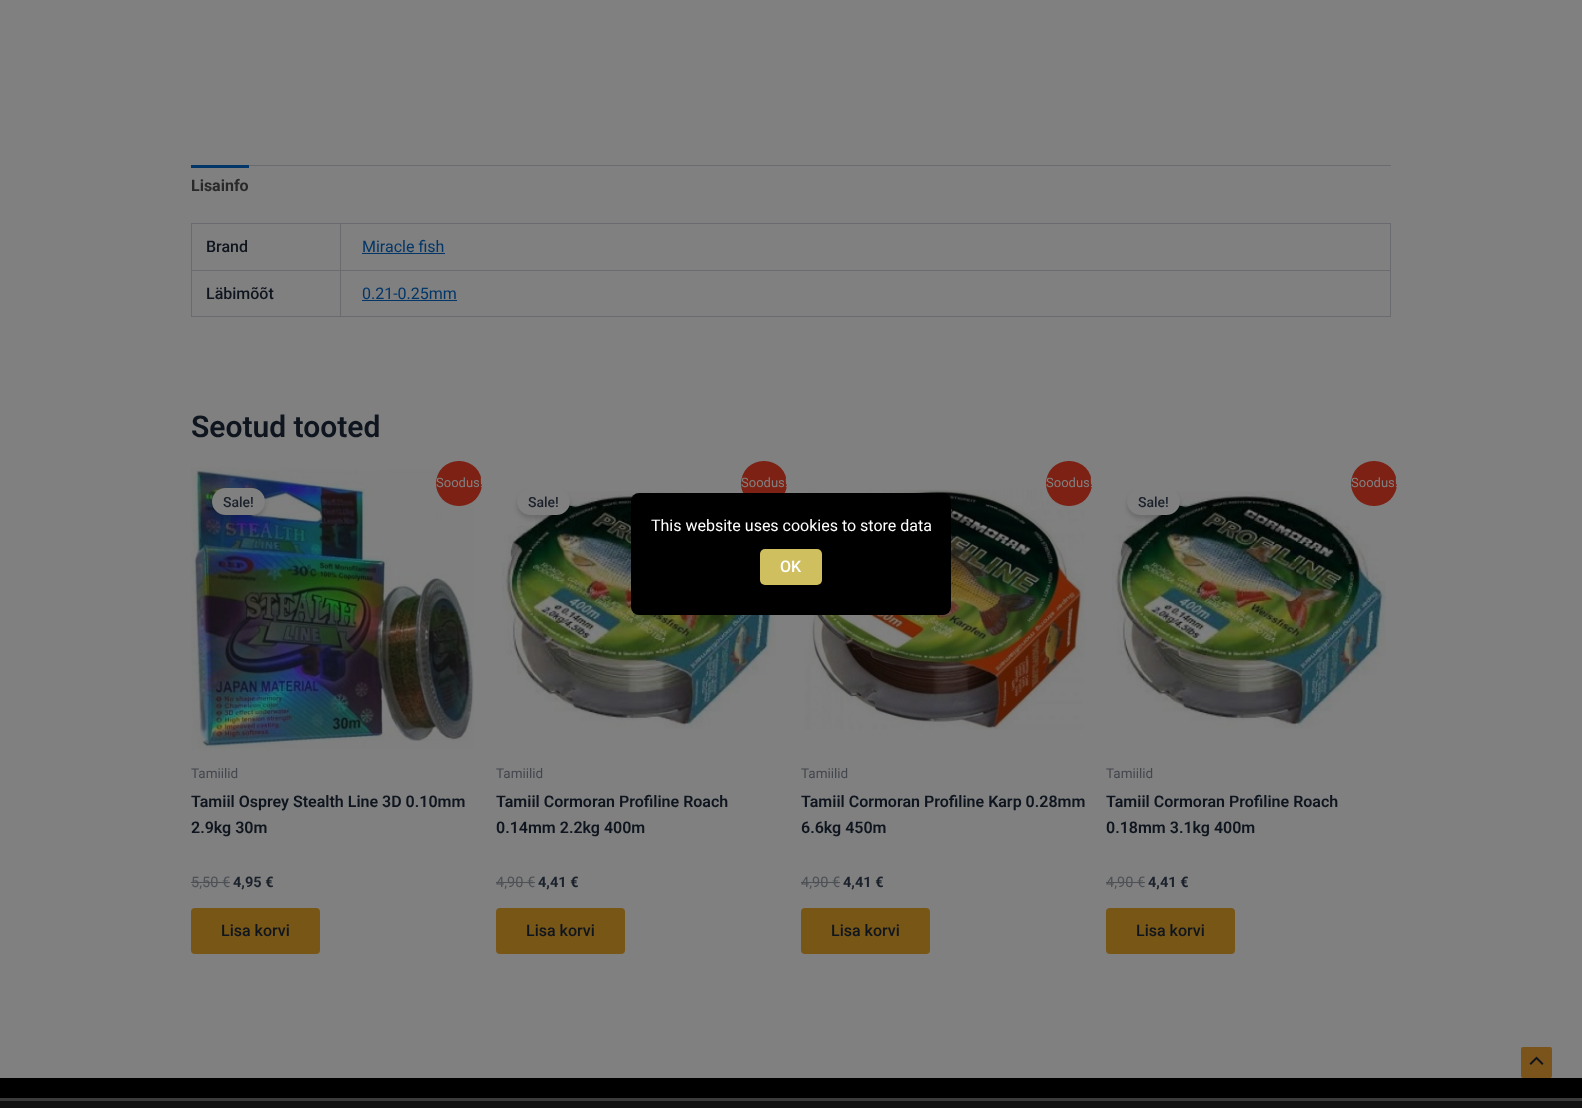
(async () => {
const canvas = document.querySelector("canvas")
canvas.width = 1582
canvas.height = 1108
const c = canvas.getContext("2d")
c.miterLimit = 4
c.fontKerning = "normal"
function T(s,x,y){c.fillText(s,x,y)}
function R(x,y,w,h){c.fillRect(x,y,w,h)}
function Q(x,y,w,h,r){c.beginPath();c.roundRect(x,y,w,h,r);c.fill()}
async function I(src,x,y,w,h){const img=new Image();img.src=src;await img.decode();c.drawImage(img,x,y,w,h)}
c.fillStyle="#808080"
R(0,0,1582,1108)
c.fillStyle="#696b6e"
R(249,165,1142,1)
c.fillStyle="#023669"
R(191,165,58,3)
c.font="bold 16px Roboto"
c.fillStyle="#292929"
T("Lisainfo",191,191)
c.fillStyle="#696b6e"
R(191,223,1200,1)
R(340,224,1,93)
R(191,270,150,1)
R(191,224,1,47)
c.font="500 16px Roboto"
c.fillStyle="#0f151e"
T("Brand",206,252)
c.fillStyle="#696b6e"
R(1390,224,1,93)
R(341,270,1050,1)
c.font="16px Roboto"
c.fillStyle="#023669"
T("Miracle fish",362,252)
R(362,253,83,1)
c.fillStyle="#696b6e"
R(191,316,1200,1)
R(191,271,1,46)
c.font="500 16px Roboto"
c.fillStyle="#0f151e"
T("Läbimõõt",206,299)
c.font="16px Roboto"
c.fillStyle="#023669"
T("0.21-0.25mm",362,299)
R(362,300,95,1)
c.font="600 30px Roboto"
c.fillStyle="#0f151e"
T("Seotud tooted",191,437)
await I("1.png",191,467,283,284)
c.fillStyle="#7c2113"
Q(436,461,46,45,22.5)
c.font="13px Roboto"
c.fillStyle="#808080"
T("Soodus!",436,487)
c.fillStyle="#00000026"
c.filter="blur(2px)"
c.beginPath()
c.roundRect(212,492,53,27,13.5)
c.fill()
c.filter="none"
c.fillStyle="#808080"
Q(212,488,53,27,13.5)
c.font="500 14px Roboto"
c.fillStyle="#1a212b"
T("Sale!",223,507)
c.font="13.5px Roboto"
c.fillStyle="#43474d"
T("Tamiilid",191,778)
c.font="600 16px Roboto"
c.fillStyle="#0f151e"
T("Tamiil Osprey Stealth Line 3D 0.10mm",191,807)
T("2.9kg 30m",191,833)
c.font="14.5px Roboto"
c.fillStyle="#4d5055"
T("5,50 €",191,887)
R(191,882,39,1)
c.font="bold 14.5px Roboto"
c.fillStyle="#1a212b"
T("4,95 €",233,887)
c.fillStyle="#785616"
Q(191,908,129,46,4)
c.font="500 16px Roboto"
c.fillStyle="#0f151e"
T("Lisa korvi",221,936)
await I("2.png",502,491,274,238)
c.fillStyle="#7c2113"
Q(741,461,46,45,22.5)
c.font="13px Roboto"
c.fillStyle="#808080"
T("Soodus!",741,487)
c.fillStyle="#00000026"
c.filter="blur(2px)"
c.beginPath()
c.roundRect(517,492,53,27,13.5)
c.fill()
c.filter="none"
c.fillStyle="#808080"
Q(517,488,53,27,13.5)
c.font="500 14px Roboto"
c.fillStyle="#1a212b"
T("Sale!",528,507)
c.font="13.5px Roboto"
c.fillStyle="#43474d"
T("Tamiilid",496,778)
c.font="600 16px Roboto"
c.fillStyle="#0f151e"
T("Tamiil Cormoran Profiline Roach",496,807)
T("0.14mm 2.2kg 400m",496,833)
c.font="14.5px Roboto"
c.fillStyle="#4d5055"
T("4,90 €",496,887)
R(496,882,39,1)
c.font="bold 14.5px Roboto"
c.fillStyle="#1a212b"
T("4,41 €",538,887)
c.fillStyle="#785616"
Q(496,908,129,46,4)
c.font="500 16px Roboto"
c.fillStyle="#0f151e"
T("Lisa korvi",526,936)
await I("3.png",804,489,282,241)
c.fillStyle="#7c2113"
Q(1046,461,46,45,22.5)
c.font="13px Roboto"
c.fillStyle="#808080"
T("Soodus!",1046,487)
Q(822,488,53,27,13.5)
c.font="13.5px Roboto"
c.fillStyle="#43474d"
T("Tamiilid",801,778)
c.font="600 16px Roboto"
c.fillStyle="#0f151e"
T("Tamiil Cormoran Profiline Karp 0.28mm",801,807)
T("6.6kg 450m",801,833)
c.font="14.5px Roboto"
c.fillStyle="#4d5055"
T("4,90 €",801,887)
R(801,882,39,1)
c.font="bold 14.5px Roboto"
c.fillStyle="#1a212b"
T("4,41 €",843,887)
c.fillStyle="#785616"
Q(801,908,129,46,4)
c.font="500 16px Roboto"
c.fillStyle="#0f151e"
T("Lisa korvi",831,936)
await I("4.png",1112,491,274,238)
c.fillStyle="#7c2113"
Q(1351,461,46,45,22.5)
c.font="13px Roboto"
c.fillStyle="#808080"
T("Soodus!",1351,487)
c.fillStyle="#00000026"
c.filter="blur(2px)"
c.beginPath()
c.roundRect(1127,492,53,27,13.5)
c.fill()
c.filter="none"
c.fillStyle="#808080"
Q(1127,488,53,27,13.5)
c.font="500 14px Roboto"
c.fillStyle="#1a212b"
T("Sale!",1138,507)
c.font="13.5px Roboto"
c.fillStyle="#43474d"
T("Tamiilid",1106,778)
c.font="600 16px Roboto"
c.fillStyle="#0f151e"
T("Tamiil Cormoran Profiline Roach",1106,807)
T("0.18mm 3.1kg 400m",1106,833)
c.font="14.5px Roboto"
c.fillStyle="#4d5055"
T("4,90 €",1106,887)
R(1106,882,39,1)
c.font="bold 14.5px Roboto"
c.fillStyle="#1a212b"
T("4,41 €",1148,887)
c.fillStyle="#785616"
Q(1106,908,129,46,4)
c.font="500 16px Roboto"
c.fillStyle="#0f151e"
T("Lisa korvi",1136,936)
c.fillStyle="#000"
R(0,1078,1582,20)
Q(631,493,320,122,8)
c.font="16px Roboto"
c.fillStyle="#fff"
T("This website uses cookies to store data",651,531)
c.fillStyle="#cfbf5f"
Q(760,549,62,36,5)
c.font="500 16px Roboto"
c.fillStyle="#fff"
T("OK",780,572)
c.fillStyle="#121212"
R(0,1101,1582,7)
c.fillStyle="#3b3b3b"
R(0,1098,1582,3)
c.fillStyle="#7a541a"
Q(1521,1047,31,31,2)
await I("5.png",1529,1056,15,9)
})()
